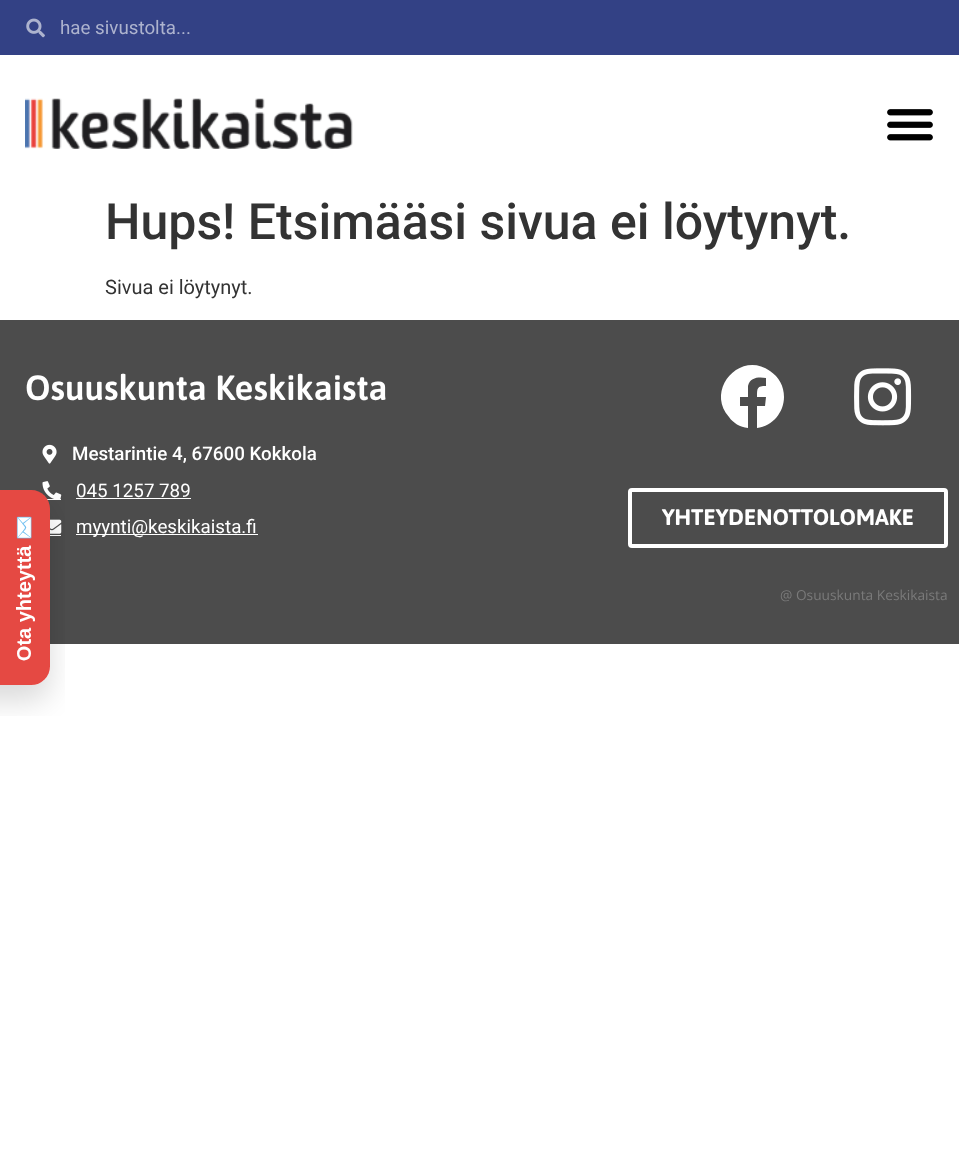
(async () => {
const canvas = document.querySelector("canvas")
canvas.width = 959
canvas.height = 1173
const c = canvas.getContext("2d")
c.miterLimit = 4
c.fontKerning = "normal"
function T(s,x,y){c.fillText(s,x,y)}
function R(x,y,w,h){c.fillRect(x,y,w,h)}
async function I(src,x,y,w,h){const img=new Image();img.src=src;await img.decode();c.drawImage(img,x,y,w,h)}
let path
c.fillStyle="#fff"
R(0,0,959,1173)
c.fillStyle="#334185"
R(0,0,959,55)
await I("1.png",26,18,19,20)
c.font="18.75px Roboto"
c.fillStyle="#adb3ce"
T("hae sivustolta...",60,34)
await I("2.png",25,98,328,51)
await I("3.png",887,109,46,32)
c.font="500 50px Roboto"
c.fillStyle="#333"
T("Hups! Etsimääsi sivua ei löytynyt.",105,239)
c.font="20px Roboto"
T("Sivua ei löytynyt.",105,294)
c.fillStyle="#4c4c4c"
R(0,320,959,324)
c.font="600 35px Asap"
c.fillStyle="#fff"
T("Osuuskunta Keskikaista",25,400)
await I("4.png",42,444,15,20)
c.font="500 18.75px Roboto"
T("Mestarintie 4, 67600 Kokkola",72,460)
await I("5.png",42,481,20,18)
R(43,499,18,1)
c.font="18.75px Roboto"
T("045 1257 789",76,497)
R(76,498,115,1)
await I("6.png",50,519,12,15)
R(43,535,18,1)
R(76,534,182,1)
T("myynti@keskikaista.fi",76,533)
path = new Path2D("M784 397c0 15-11 29-27 31v-22h8l1-9h-9c0-9 0-11 9-11v-8c-7-1-16-1-18 8v11h-8v9h8v22c-8-1-15-5-19-11c-24-27 11-67 41-46c9 6 14 15 14 26z")
c.fill(path)
await I("7.png",854,368,58,58)
c.beginPath()
c.roundRect(630,490,316,56,2)
c.strokeStyle="#fff"
c.lineWidth=4
c.stroke()
c.font="bold 22.5px Asap"
T("YHTEYDENOTTOLOMAKE",662,525)
c.font="13.75px Open Sans"
c.fillStyle="#7a7a7a"
T("@ Osuuskunta Keskikaista",780,600)
await I("8.png",0,490,65,226)
})()
